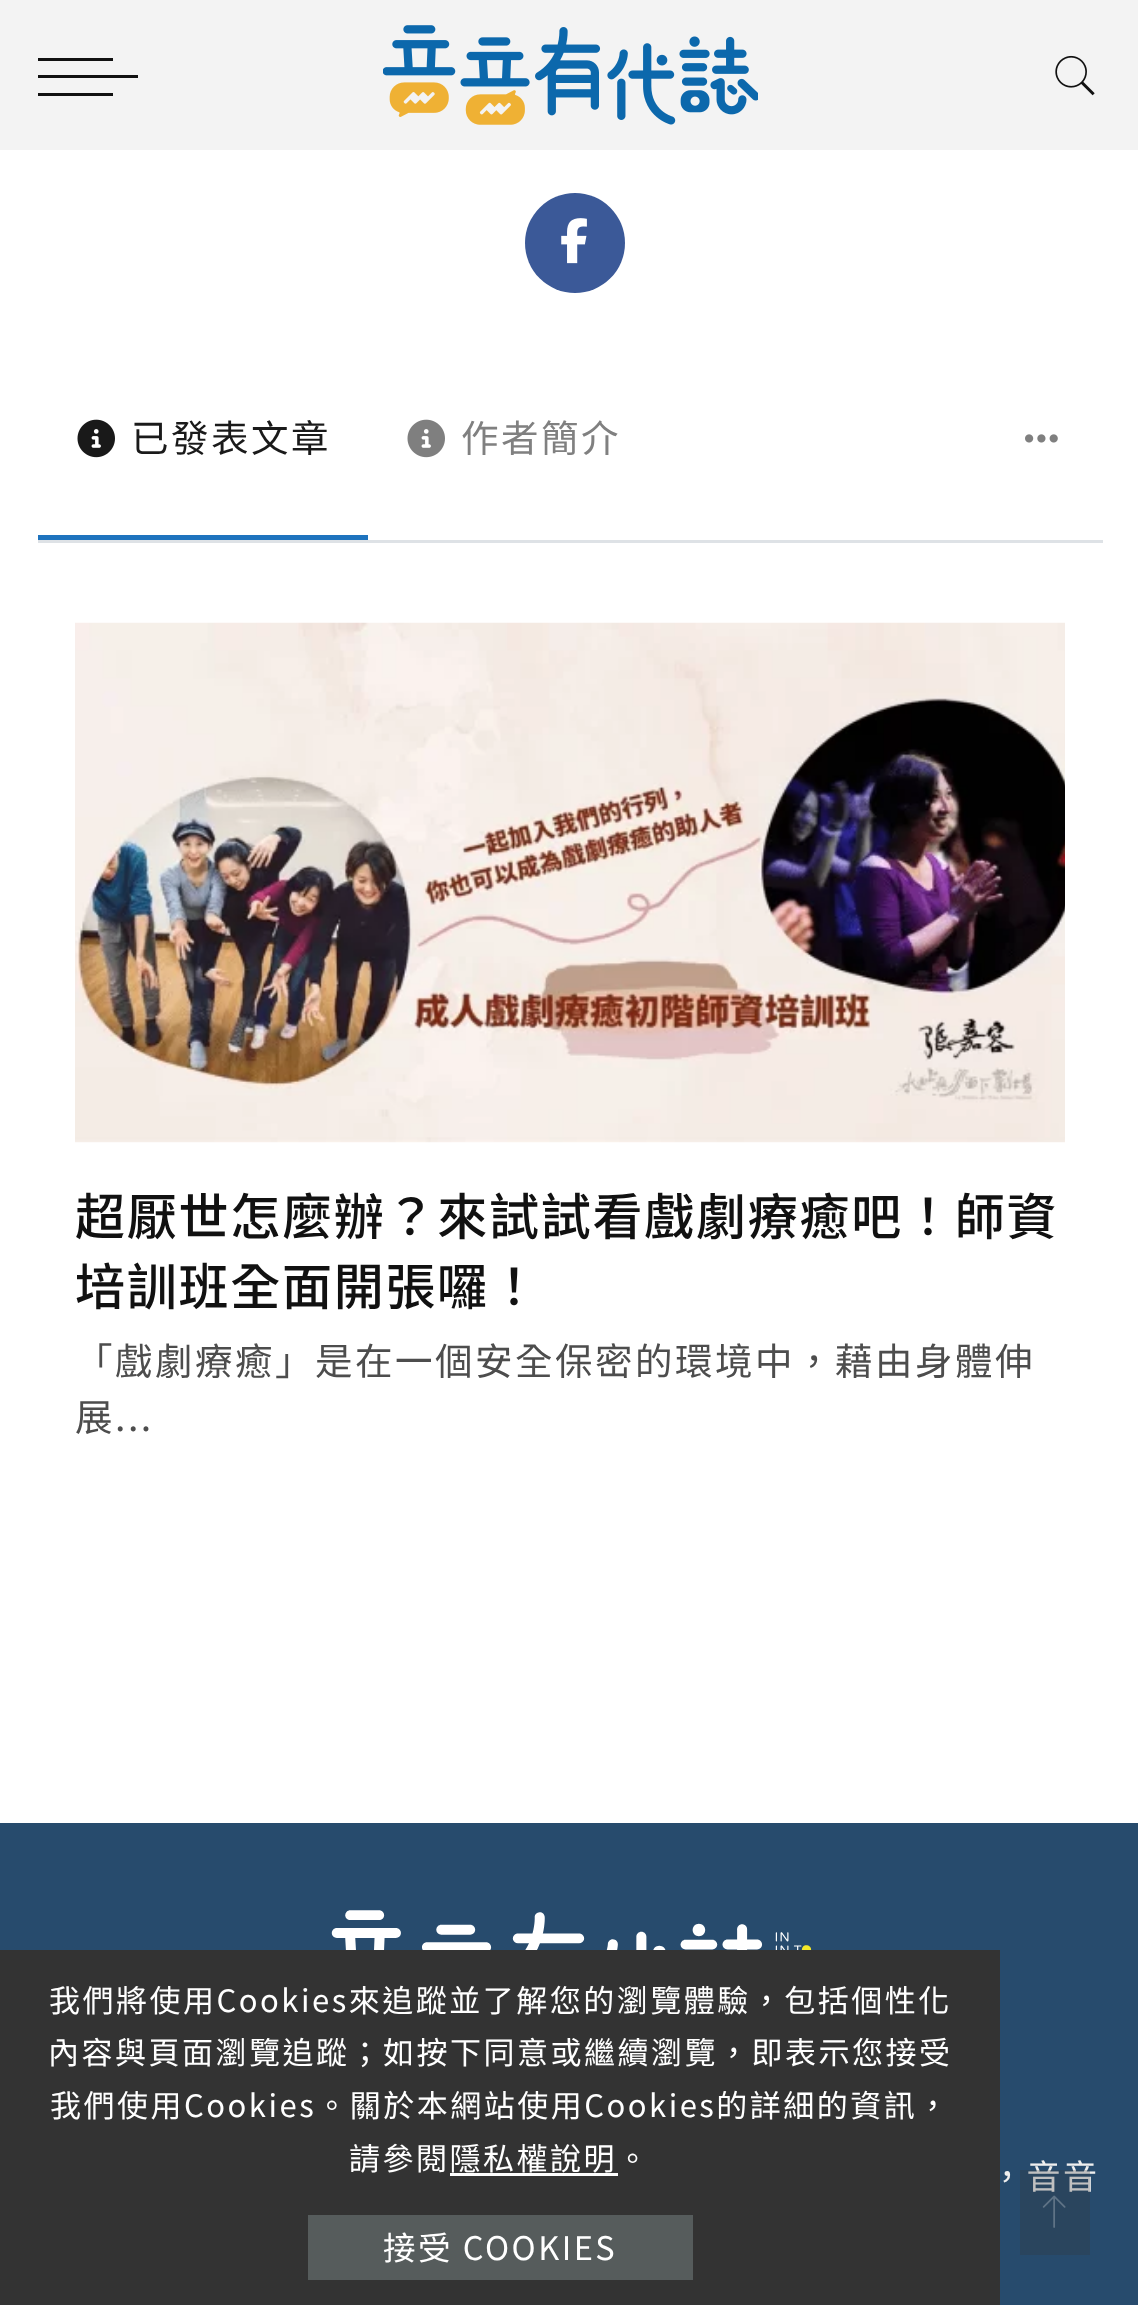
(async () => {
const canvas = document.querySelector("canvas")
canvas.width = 1138
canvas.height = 2305
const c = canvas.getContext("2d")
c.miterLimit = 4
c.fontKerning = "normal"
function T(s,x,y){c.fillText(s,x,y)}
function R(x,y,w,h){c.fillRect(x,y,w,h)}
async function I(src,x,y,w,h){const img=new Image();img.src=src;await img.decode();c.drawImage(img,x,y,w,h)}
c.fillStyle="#fff"
R(0,0,1138,2305)
c.fillStyle="#f3f3f3"
R(0,0,1138,150)
c.fillStyle="#111"
R(38,75,100,3)
R(38,58,75,3)
R(38,93,75,3)
await I("1.png",383,25,375,100)
await I("2.png",1055,55,40,41)
c.fillStyle="#3b5998"
c.beginPath()
c.arc(575,243,50,0,7)
c.fill()
await I("3.png",561,218,26,46)
c.fillStyle="#dee2e6"
R(38,540,1065,3)
c.fillStyle="#1e73be"
R(38,535,330,5)
await I("4.png",77,419,38,39)
c.letterSpacing="2.5px"
c.font="37.5px Noto Sans TC"
c.fillStyle="#1a1a1a"
T("已發表文章",131,452)
await I("5.png",407,419,38,39)
c.fillStyle="#808080"
T("作者簡介",461,452)
await I("6.png",1025,434,33,9)
await I("7.png",75,622,990,521)
c.letterSpacing="1.75px"
c.font="500 50px Noto Sans TC"
c.fillStyle="#111"
T("超厭世怎麼辦？來試試看戲劇療癒吧！師資",75,1235)
T("培訓班全面開張囉！",75,1305)
c.letterSpacing="2.5px"
c.font="37.5px Noto Sans TC"
c.fillStyle="#4d4d4d"
T("「戲劇療癒」是在一個安全保密的環境中，藉由身體伸",75,1375)
T("展...",75,1431)
c.fillStyle="#274b6d"
R(0,1823,1138,482)
await I("8.png",331,1910,481,40)
c.font="34px Noto Sans TC"
c.fillStyle="#efefef"
T("，音音",990,2189)
c.fillStyle="#333"
R(0,1950,1000,355)
c.font="31px Noto Sans TC"
c.fillStyle="#fff"
T("我們將使用Cookies來追蹤並了解您的瀏覽體驗，包括個性化",49,2012)
T("內容與頁面瀏覽追蹤；如按下同意或繼續瀏覽，即表示您接受",48,2064)
T("我們使用Cookies。關於本網站使用Cookies的詳細的資訊，",50,2117)
T("請參閱隱私權說明。",349,2170)
R(450,2173,168,3)
c.fillStyle="#565c5c"
R(308,2215,385,65)
c.font="32.5px Noto Sans TC"
c.fillStyle="#fff"
T("接受 COOKIES",383,2260)
c.fillStyle="#33333340"
R(1020,2170,70,85)
await I("9.png",1042,2195,24,33)
})()
